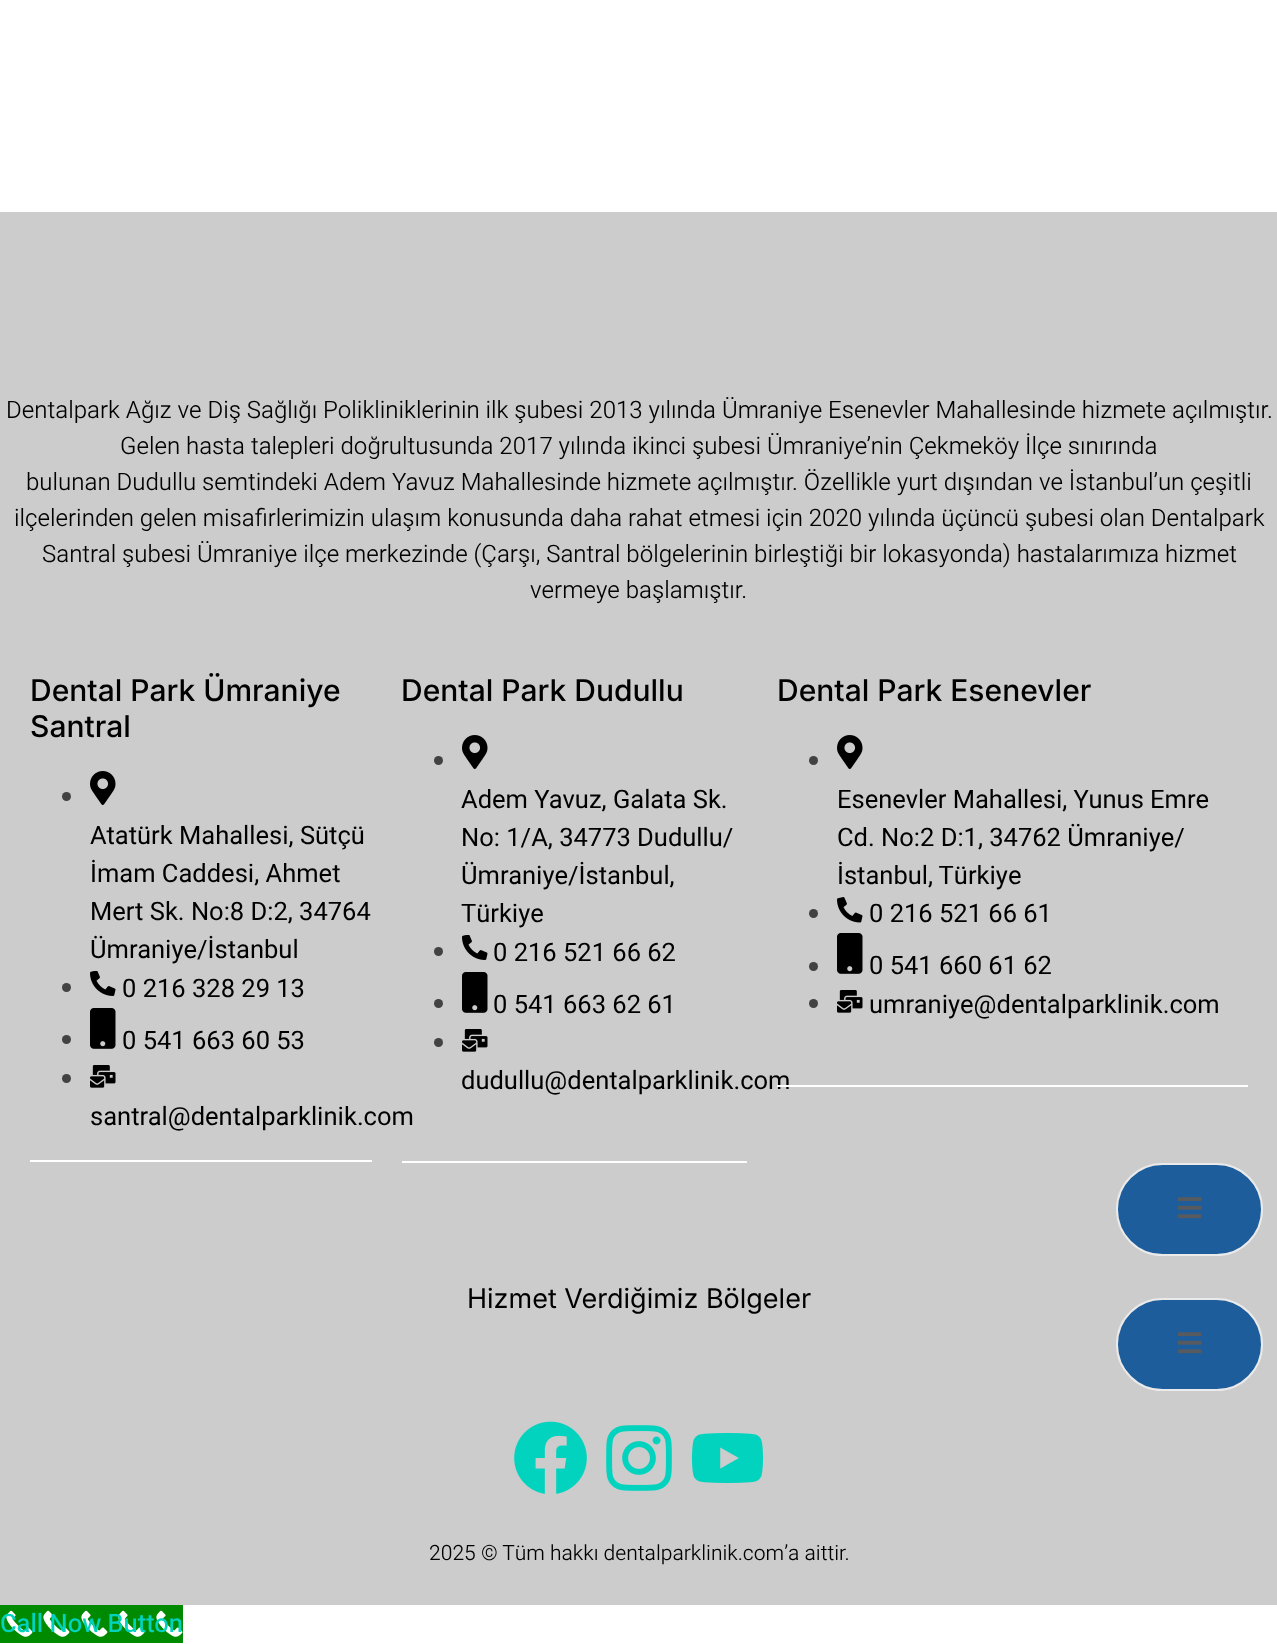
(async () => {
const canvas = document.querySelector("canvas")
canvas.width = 1277
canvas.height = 1644
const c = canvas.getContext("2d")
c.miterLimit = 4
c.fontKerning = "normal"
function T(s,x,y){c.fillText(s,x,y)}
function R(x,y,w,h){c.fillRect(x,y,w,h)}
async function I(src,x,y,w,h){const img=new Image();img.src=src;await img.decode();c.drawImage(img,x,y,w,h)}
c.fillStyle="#fff"
R(0,0,1277,1644)
c.fillStyle="#ccc"
R(0,212,1277,1393)
c.font="300 24px Heebo"
c.fillStyle="#000"
T("Dentalpark Ağız ve Diş Sağlığı Polikliniklerinin ilk şubesi 2013 yılında Ümraniye Esenevler Mahallesinde hizmete açılmıştır.",6,418)
T("Gelen hasta talepleri doğrultusunda 2017 yılında ikinci şubesi Ümraniye’nin Çekmeköy İlçe sınırında",120,454)
T("bulunan Dudullu semtindeki Adem Yavuz Mahallesinde hizmete açılmıştır. Özellikle yurt dışından ve İstanbul’un çeşitli",26,490)
T("ilçelerinden gelen misafirlerimizin ulaşım konusunda daha rahat etmesi için 2020 yılında üçüncü şubesi olan Dentalpark",14,526)
T("Santral şubesi Ümraniye ilçe merkezinde (Çarşı, Santral bölgelerinin birleştiği bir lokasyonda) hastalarımıza hizmet",42,562)
T("vermeye başlamıştır.",530,598)
c.font="500 30px Inter"
T("Dental Park Ümraniye",30,701)
T("Santral",30,737)
c.fillStyle="#fff"
R(30,1160,342,2)
c.fillStyle="#424242"
c.beginPath()
c.arc(66.5,796.5,4.5,0,7)
c.fill()
await I("1.png",90,771,26,34)
c.font="25.5px Heebo"
c.fillStyle="#000"
T("Atatürk Mahallesi, Sütçü",90,844)
T("İmam Caddesi, Ahmet",90,882)
T("Mert Sk. No:8 D:2, 34764",90,920)
T("Ümraniye/İstanbul",90,958)
c.fillStyle="#424242"
c.beginPath()
c.arc(66.5,987.5,4.5,0,7)
c.fill()
await I("2.png",90,971,26,25)
c.fillStyle="#000"
T("0 216 328 29 13",122,997)
c.fillStyle="#424242"
c.beginPath()
c.arc(66.5,1039.5,4.5,0,7)
c.fill()
await I("3.png",90,1008,26,41)
c.fillStyle="#000"
T("0 541 663 60 53",122,1049)
c.fillStyle="#424242"
c.beginPath()
c.arc(66.5,1078.5,4.5,0,7)
c.fill()
await I("4.png",90,1065,26,23)
c.fillStyle="#000"
T("santral@dentalparklinik.com",90,1125)
c.font="500 30px Inter"
T("Dental Park Dudullu",401,701)
c.fillStyle="#fff"
R(402,1161,345,2)
c.fillStyle="#424242"
c.beginPath()
c.arc(438.5,760.5,4.5,0,7)
c.fill()
await I("1.png",462,735,26,34)
c.font="25.5px Heebo"
c.fillStyle="#000"
T("Adem Yavuz, Galata Sk.",461,808)
T("No: 1/A, 34773 Dudullu/",461,846)
T("Ümraniye/İstanbul,",461,884)
T("Türkiye",461,922)
c.fillStyle="#424242"
c.beginPath()
c.arc(438.5,951.5,4.5,0,7)
c.fill()
await I("2.png",462,935,26,25)
c.fillStyle="#000"
T("0 216 521 66 62",493,961)
c.fillStyle="#424242"
c.beginPath()
c.arc(438.5,1003.5,4.5,0,7)
c.fill()
await I("3.png",462,972,26,41)
c.fillStyle="#000"
T("0 541 663 62 61",493,1013)
c.fillStyle="#424242"
c.beginPath()
c.arc(438.5,1042.5,4.5,0,7)
c.fill()
await I("4.png",462,1029,26,23)
c.fillStyle="#000"
T("dudullu@dentalparklinik.com",461,1089)
c.font="500 30px Inter"
T("Dental Park Esenevler",777,701)
c.fillStyle="#fff"
R(777,1085,471,2)
c.fillStyle="#424242"
c.beginPath()
c.arc(813.5,760.5,4.5,0,7)
c.fill()
await I("1.png",837,735,26,34)
c.font="25.5px Heebo"
c.fillStyle="#000"
T("Esenevler Mahallesi, Yunus Emre",837,808)
T("Cd. No:2 D:1, 34762 Ümraniye/",837,846)
T("İstanbul, Türkiye",837,884)
c.fillStyle="#424242"
c.beginPath()
c.arc(813.5,913.5,4.5,0,7)
c.fill()
await I("5.png",837,897,26,26)
c.fillStyle="#000"
T("0 216 521 66 61",869,922)
c.fillStyle="#424242"
c.beginPath()
c.arc(813.5,966.5,4.5,0,7)
c.fill()
await I("3.png",837,933,26,41)
c.fillStyle="#000"
T("0 541 660 61 62",869,974)
c.fillStyle="#424242"
c.beginPath()
c.arc(813.5,1003.5,4.5,0,7)
c.fill()
await I("4.png",837,990,26,23)
c.fillStyle="#000"
T("umraniye@dentalparklinik.com",869,1013)
c.fillStyle="#1d5d9b"
c.beginPath()
c.roundRect(1117,1164,145,91,45.5)
c.fill()
c.strokeStyle="#eaeaeb"
c.lineWidth=2
c.stroke()
await I("6.png",1178,1197,24,22)
c.font="27px Inter"
c.fillStyle="#000"
T("Hizmet Verdiğimiz Bölgeler",467,1308)
c.fillStyle="#1d5d9b"
c.beginPath()
c.roundRect(1117,1299,145,91,45.5)
c.fill()
c.stroke()
await I("6.png",1178,1332,24,22)
await I("7.png",514,1421,73,73)
await I("8.png",606,1425,66,66)
await I("9.png",691,1433,73,50)
c.font="300 21px Heebo"
c.fillStyle="#000"
T("2025 © Tüm hakkı dentalparklinik.com’a aittir.",429,1560)
c.fillStyle="#008a00"
R(0,1605,183,38)
await I("10.png",6,1610,177,27)
c.font="500 25.5px Heebo"
c.fillStyle="#01d3be"
T("Call Now Button",0,1632)
})()
